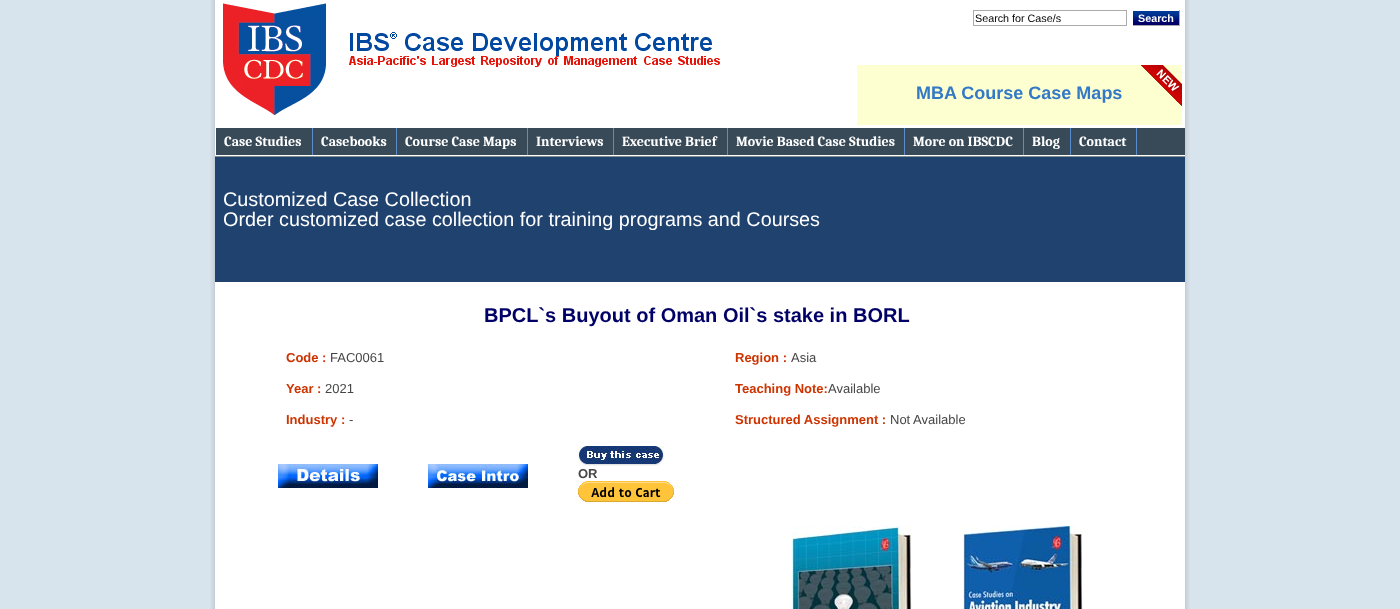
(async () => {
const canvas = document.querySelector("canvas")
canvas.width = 1400
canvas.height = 609
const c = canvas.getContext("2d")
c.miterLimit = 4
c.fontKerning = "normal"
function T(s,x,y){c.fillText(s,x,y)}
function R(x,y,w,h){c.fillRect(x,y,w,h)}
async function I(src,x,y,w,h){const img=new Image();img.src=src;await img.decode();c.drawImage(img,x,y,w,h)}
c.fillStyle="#d8e4ed"
R(0,0,1400,609)
await I("1.png",210,0,980,609)
await I("2.png",223,3,497,112)
c.strokeStyle="#ababab"
c.strokeRect(973.5,10.5,153,15)
c.font="10.75px Liberation Sans"
c.fillStyle="#000"
T("Search for Case/s",975,22)
await I("3.png",1133,11,46,14)
c.fillStyle="#aaa"
R(1179,10,1,16)
R(1132,25,48,1)
c.fillStyle="#fff"
R(1132,25,1,1)
c.font="bold 10.75px Liberation Sans"
T("Search",1138,22)
c.fillStyle="#feffd0"
R(857,65,325,60)
await I("4.png",1141,65,41,41)
c.font="bold 18px Liberation Sans"
c.fillStyle="#3379c5"
T("MBA Course Case Maps",916,99)
c.fillStyle="#384a58"
R(216,128,969,27)
c.fillStyle="#598ccc"
R(312,128,1,27)
c.font="bold 14px Caladea"
c.fillStyle="#fff"
T("Case Studies",224,146)
c.fillStyle="#598ccc"
R(396,128,1,27)
c.fillStyle="#fff"
T("Casebooks",321,146)
c.fillStyle="#598ccc"
R(527,128,1,27)
c.fillStyle="#fff"
T("Course Case Maps",405,146)
c.fillStyle="#598ccc"
R(613,128,1,27)
c.fillStyle="#fff"
T("Interviews",536,146)
c.fillStyle="#598ccc"
R(727,128,1,27)
c.fillStyle="#fff"
T("Executive Brief",622,146)
c.fillStyle="#598ccc"
R(904,128,1,27)
c.fillStyle="#fff"
T("Movie Based Case Studies",736,146)
c.fillStyle="#598ccc"
R(1023,128,1,27)
c.fillStyle="#fff"
T("More on IBSCDC",913,146)
c.fillStyle="#598ccc"
R(1070,128,1,27)
c.fillStyle="#fff"
T("Blog",1032,146)
c.fillStyle="#598ccc"
R(1136,128,1,27)
c.fillStyle="#fff"
T("Contact",1079,146)
c.fillStyle="#818d8a"
R(215,156,970,1)
c.fillStyle="#20426f"
R(215,157,970,125)
c.font="19.8px Liberation Sans"
c.fillStyle="#fff"
T("Customized Case Collection",223,206)
T("Order customized case collection for training programs and Courses",223,226)
c.font="bold 20px Liberation Sans"
c.fillStyle="#006"
T("BPCL`s Buyout of Oman Oil`s stake in BORL",484,322)
c.font="bold 13px Liberation Sans"
c.fillStyle="#cd3400"
T("Code :",286,362)
c.font="13px Liberation Sans"
c.fillStyle="#474646"
T("FAC0061",330,362)
c.font="bold 13px Liberation Sans"
c.fillStyle="#cd3400"
T("Year :",286,393)
c.font="13px Liberation Sans"
c.fillStyle="#474646"
T("2021",325,393)
c.font="bold 13px Liberation Sans"
c.fillStyle="#cd3400"
T("Industry :",286,424)
c.font="13px Liberation Sans"
c.fillStyle="#474646"
T("-",349,424)
c.font="bold 13px Liberation Sans"
c.fillStyle="#cd3400"
T("Region :",735,362)
c.font="13px Liberation Sans"
c.fillStyle="#474646"
T("Asia",791,362)
c.font="bold 13px Liberation Sans"
c.fillStyle="#cd3400"
T("Teaching Note:",735,393)
c.font="13px Liberation Sans"
c.fillStyle="#474646"
T("Available",828,393)
c.font="bold 13px Liberation Sans"
c.fillStyle="#cd3400"
T("Structured Assignment :",735,424)
c.font="13px Liberation Sans"
c.fillStyle="#474646"
T("Not Available",890,424)
await I("5.png",278,464,100,24)
await I("6.png",428,464,100,24)
await I("7.png",578,446,86,20)
c.font="bold 13px Liberation Sans"
T("OR",578,478)
await I("8.png",578,481,96,21)
await I("9.png",792,526,120,83)
await I("10.png",963,526,120,83)
})()
